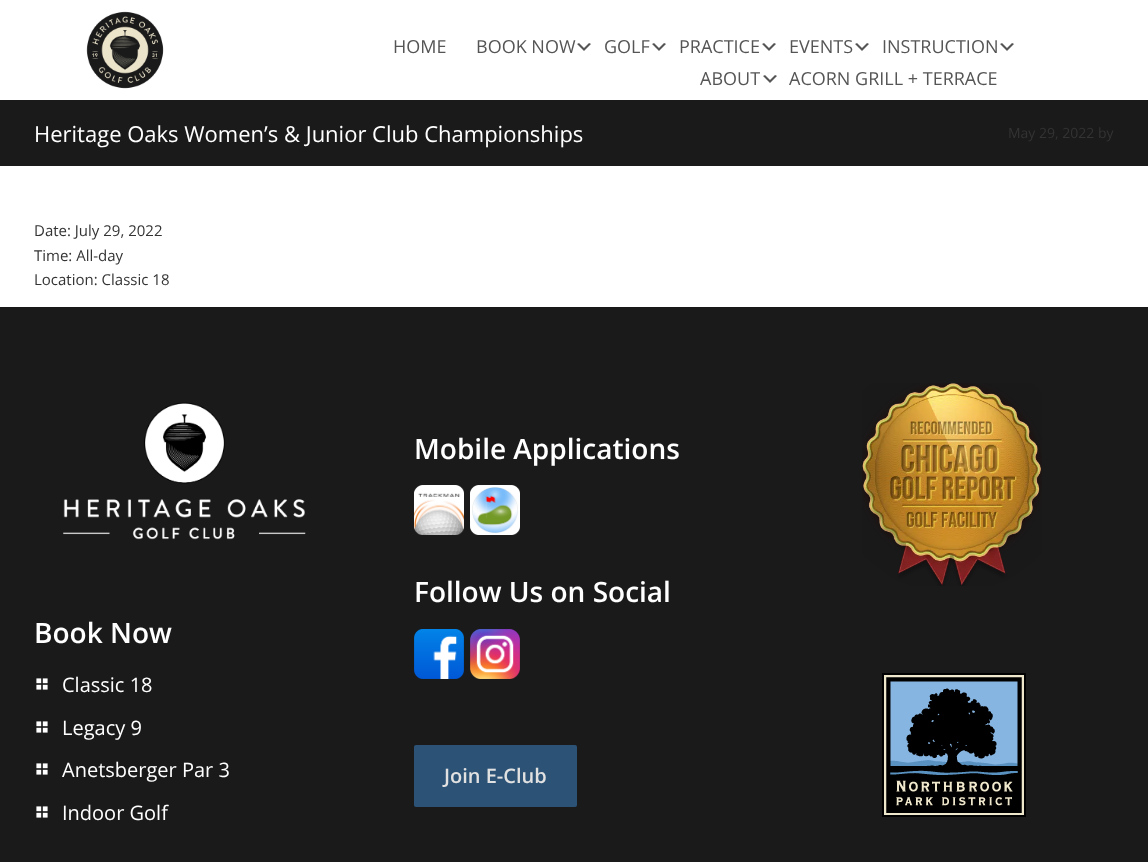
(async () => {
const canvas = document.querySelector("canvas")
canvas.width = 1148
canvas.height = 862
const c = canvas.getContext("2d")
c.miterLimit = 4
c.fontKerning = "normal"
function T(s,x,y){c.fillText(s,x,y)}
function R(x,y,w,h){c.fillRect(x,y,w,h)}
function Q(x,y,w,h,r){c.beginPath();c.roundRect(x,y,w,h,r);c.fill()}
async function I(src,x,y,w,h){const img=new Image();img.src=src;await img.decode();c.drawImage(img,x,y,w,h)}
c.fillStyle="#fff"
R(0,0,1148,862)
await I("1.png",86,11,78,78)
c.font="18px Open Sans"
c.fillStyle="#555"
T("HOME",393,53)
T("BOOK NOW",476,53)
await I("2.png",577,43,14,8)
T("GOLF",604,53)
await I("2.png",652,43,14,8)
T("PRACTICE",679,53)
await I("2.png",762,43,14,8)
T("EVENTS",789,53)
await I("2.png",855,43,14,8)
T("INSTRUCTION",882,53)
await I("2.png",1000,43,14,8)
T("ABOUT",700,85)
await I("2.png",763,75,14,8)
T("ACORN GRILL + TERRACE",789,85)
c.fillStyle="#1a1a1a"
R(0,100,1148,66)
c.font="22px Open Sans"
c.fillStyle="#fff"
T("Heritage Oaks Women’s & Junior Club Championships",34,142)
c.font="14px Open Sans"
c.fillStyle="#333"
T("May 29, 2022 by",1008,138)
c.font="15px Open Sans"
T("Date: July 29, 2022",34,236)
T("Time: All-day",34,261)
T("Location: Classic 18",34,285)
c.fillStyle="#1a1a1a"
R(0,308,1148,554)
c.fillStyle="#181818"
R(0,307,1148,1)
await I("3.png",63,402,243,138)
c.font="600 28px Open Sans"
c.fillStyle="#fff"
T("Book Now",34,643)
await I("4.png",36,678,12,12)
c.font="20px Open Sans"
T("Classic 18",62,692)
await I("4.png",36,721,12,12)
T("Legacy 9",62,735)
await I("4.png",36,763,12,12)
T("Anetsberger Par 3",62,777)
await I("4.png",36,806,12,12)
T("Indoor Golf",62,820)
c.font="600 28px Open Sans"
T("Mobile Applications",414,459)
await I("5.png",414,485,50,50)
await I("6.png",470,485,50,50)
T("Follow Us on Social",414,602)
await I("7.png",414,629,50,50)
await I("8.png",470,629,50,50)
c.fillStyle="#2c5276"
Q(414,745,163,62,2)
c.font="600 20px Open Sans"
c.fillStyle="#e1e1e1"
T("Join E-Club",444,783)
await I("9.png",862,383,180,203)
await I("10.png",882,673,144,144)
})()
